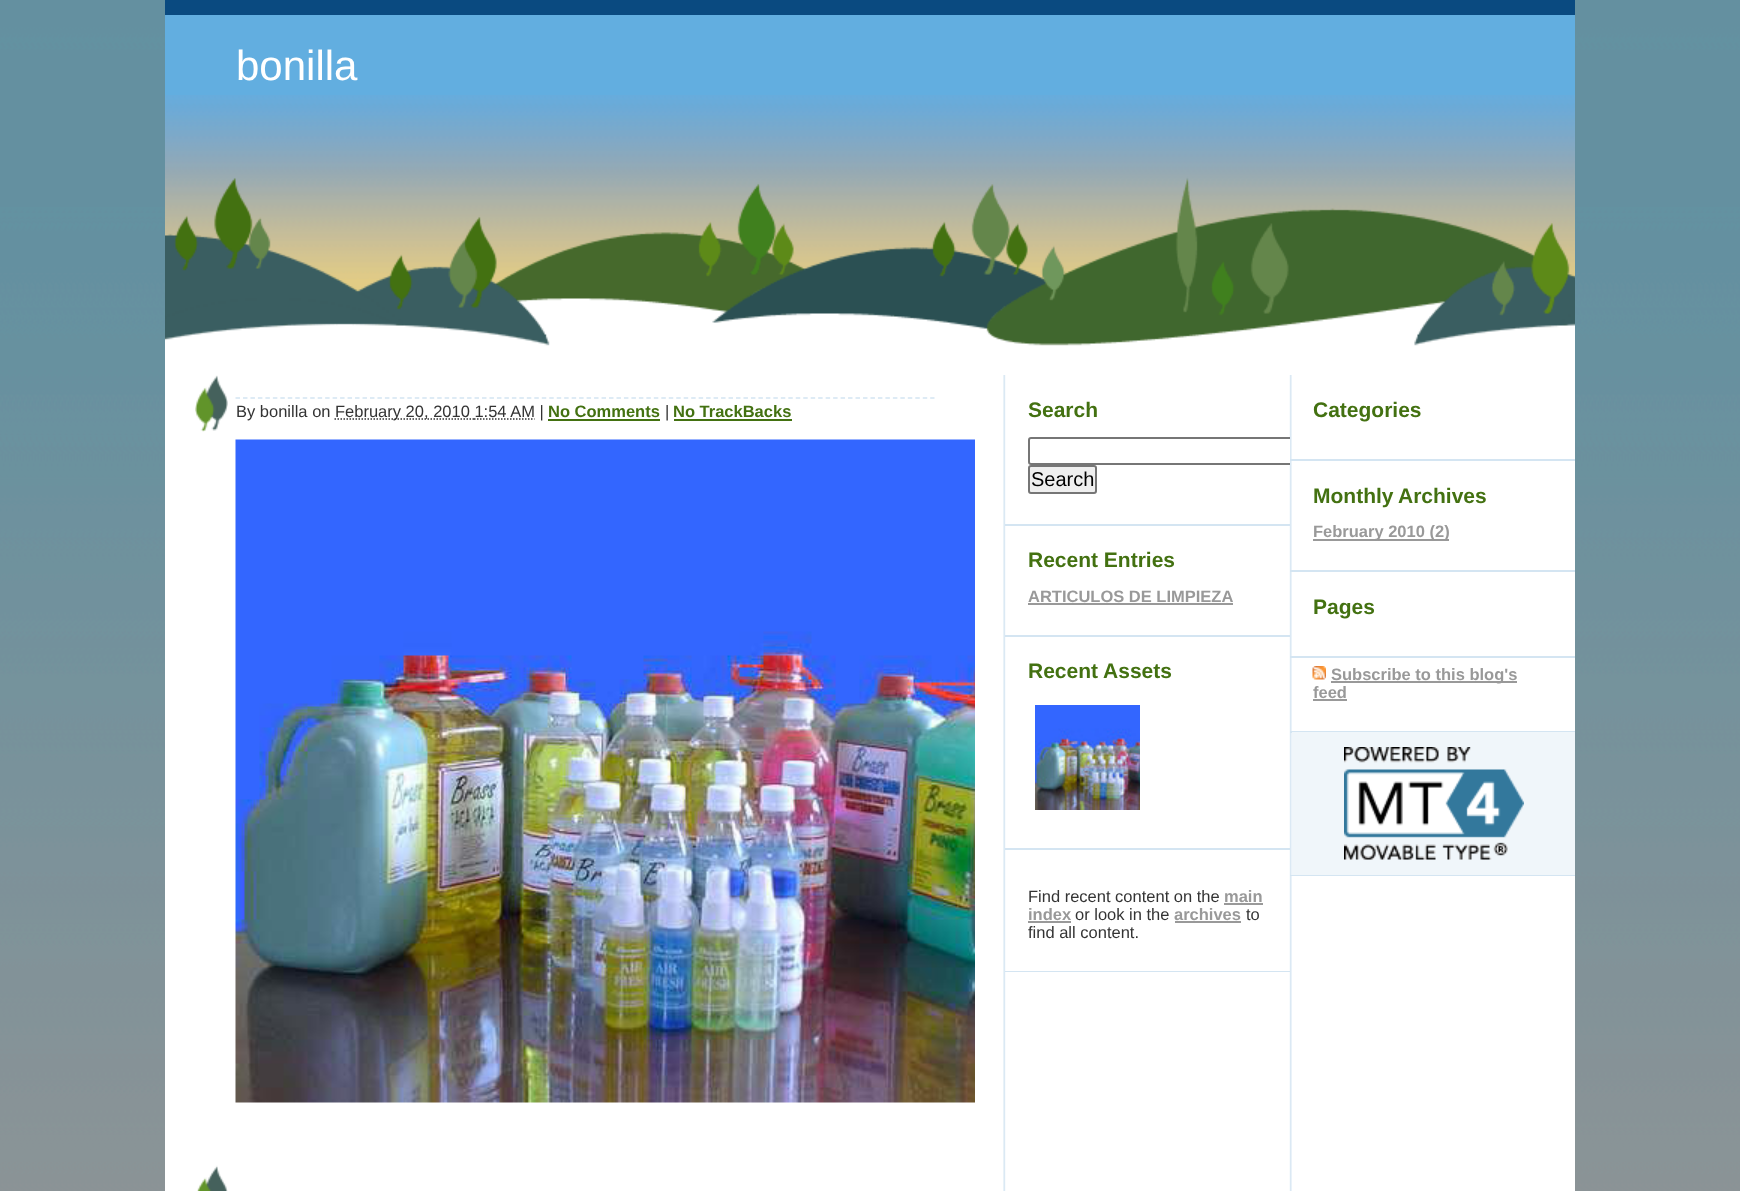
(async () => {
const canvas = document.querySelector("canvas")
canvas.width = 1740
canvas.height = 1191
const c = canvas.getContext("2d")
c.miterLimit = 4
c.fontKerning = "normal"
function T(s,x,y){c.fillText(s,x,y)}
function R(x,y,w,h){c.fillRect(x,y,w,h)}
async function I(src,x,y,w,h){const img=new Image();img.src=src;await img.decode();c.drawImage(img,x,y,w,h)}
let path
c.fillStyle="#fff"
R(0,0,1740,1191)
await I("1.png",0,0,1740,1191)
R(165,360,1410,831)
c.fillStyle="#62aee0"
R(165,15,1410,80)
await I("2.png",165,95,1410,265)
c.fillStyle="#0a4a80"
R(165,0,1410,15)
c.font="42px Liberation Sans"
c.fillStyle="#fff"
T("bonilla",236,80)
await I("3.png",1003,375,289,816)
await I("4.png",195,375,33,57)
path = new Path2D("M235.5 398h699")
c.strokeStyle="#d4e5f2"
c.lineWidth=1.5
c.setLineDash([4.5,2.97])
c.stroke(path)
c.font="16.5px Liberation Sans"
c.fillStyle="#333"
T("By bonilla on",236,417)
path = new Path2D("M334.5 419h139.5")
c.strokeStyle="#333"
c.setLineDash([1.5,1.5])
c.stroke(path)
T("February 20, 2010 1:54 AM |",335,417)
path = new Path2D("M474 419h60.5")
c.stroke(path)
c.font="bold 16.5px Liberation Sans"
c.fillStyle="#437111"
T("No Comments",548,417)
R(548,419,112,2)
c.font="16.5px Liberation Sans"
c.fillStyle="#333"
T("|",665,417)
c.font="bold 16.5px Liberation Sans"
c.fillStyle="#437111"
T("No TrackBacks",673,417)
R(674,419,118,2)
await I("5.png",235,439,740,664)
await I("6.png",197,1165,31,26)
c.fillStyle="#d4e5f2"
R(1005,524,285,2)
c.font="bold 21px Liberation Sans"
c.fillStyle="#437111"
T("Search",1028,417)
c.fillStyle="#fff"
c.beginPath()
c.roundRect(1028,437,262,28,[3,0,0,3])
c.fill()
c.fillStyle="#d4e5f2"
R(1290,459,285,2)
c.save()
c.beginPath()
c.rect(1005,375,285,149)
c.clip()
c.beginPath()
c.roundRect(1029,438,269,26,2)
c.strokeStyle="#767676"
c.lineWidth=2
c.setLineDash([])
c.stroke()
c.restore()
c.fillStyle="#efefef"
c.beginPath()
c.roundRect(1029,466,67,27,2)
c.fill()
c.strokeStyle="#767676"
c.lineWidth=2
c.setLineDash([])
c.stroke()
c.font="20px Liberation Sans"
c.fillStyle="#000"
T("Search",1031,486)
c.fillStyle="#d4e5f2"
R(1005,635,285,2)
c.font="bold 21px Liberation Sans"
c.fillStyle="#437111"
T("Recent Entries",1028,567)
c.font="bold 16.5px Liberation Sans"
c.fillStyle="#999"
T("ARTICULOS DE LIMPIEZA",1028,602)
R(1028,603,205,2)
c.fillStyle="#d4e5f2"
R(1005,848,285,2)
c.font="bold 21px Liberation Sans"
c.fillStyle="#437111"
T("Recent Assets",1028,678)
await I("7.png",1035,705,105,105)
c.fillStyle="#d4e5f2"
R(1005,971,285,1)
c.font="16.5px Liberation Sans"
c.fillStyle="#333"
T("Find recent content on the",1028,902)
c.font="bold 16.5px Liberation Sans"
c.fillStyle="#999"
T("main",1224,902)
R(1224,903,39,2)
T("index",1028,920)
R(1028,921,43,2)
c.font="16.5px Liberation Sans"
c.fillStyle="#333"
T("or look in the",1075,920)
c.font="bold 16.5px Liberation Sans"
c.fillStyle="#999"
T("archives",1174,920)
R(1175,921,66,2)
c.font="16.5px Liberation Sans"
c.fillStyle="#333"
T("to",1246,920)
T("find all content.",1028,938)
c.font="bold 21px Liberation Sans"
c.fillStyle="#437111"
T("Categories",1313,417)
c.fillStyle="#d4e5f2"
R(1290,570,285,2)
c.fillStyle="#437111"
T("Monthly",1313,503)
T("Archives",1398,503)
c.fillStyle="#999"
R(1313,539,136,2)
c.font="bold 16.5px Liberation Sans"
T("February 2010 (2)",1313,537)
c.fillStyle="#d4e5f2"
R(1290,656,285,2)
c.font="bold 21px Liberation Sans"
c.fillStyle="#437111"
T("Pages",1313,614)
c.fillStyle="#d4e5f2"
R(1290,731,285,2)
await I("8.png",1312,666,14,14)
c.fillStyle="#999"
R(1331,681,186,2)
c.font="bold 16.5px Liberation Sans"
T("Subscribe to this blog's",1331,680)
T("feed",1313,698)
R(1313,699,34,2)
c.fillStyle="#d4e5f2"
R(1290,875,285,1)
c.fillStyle="#f0f6fa"
R(1292,732,283,143)
await I("9.png",1344,747,180,113)
})()
